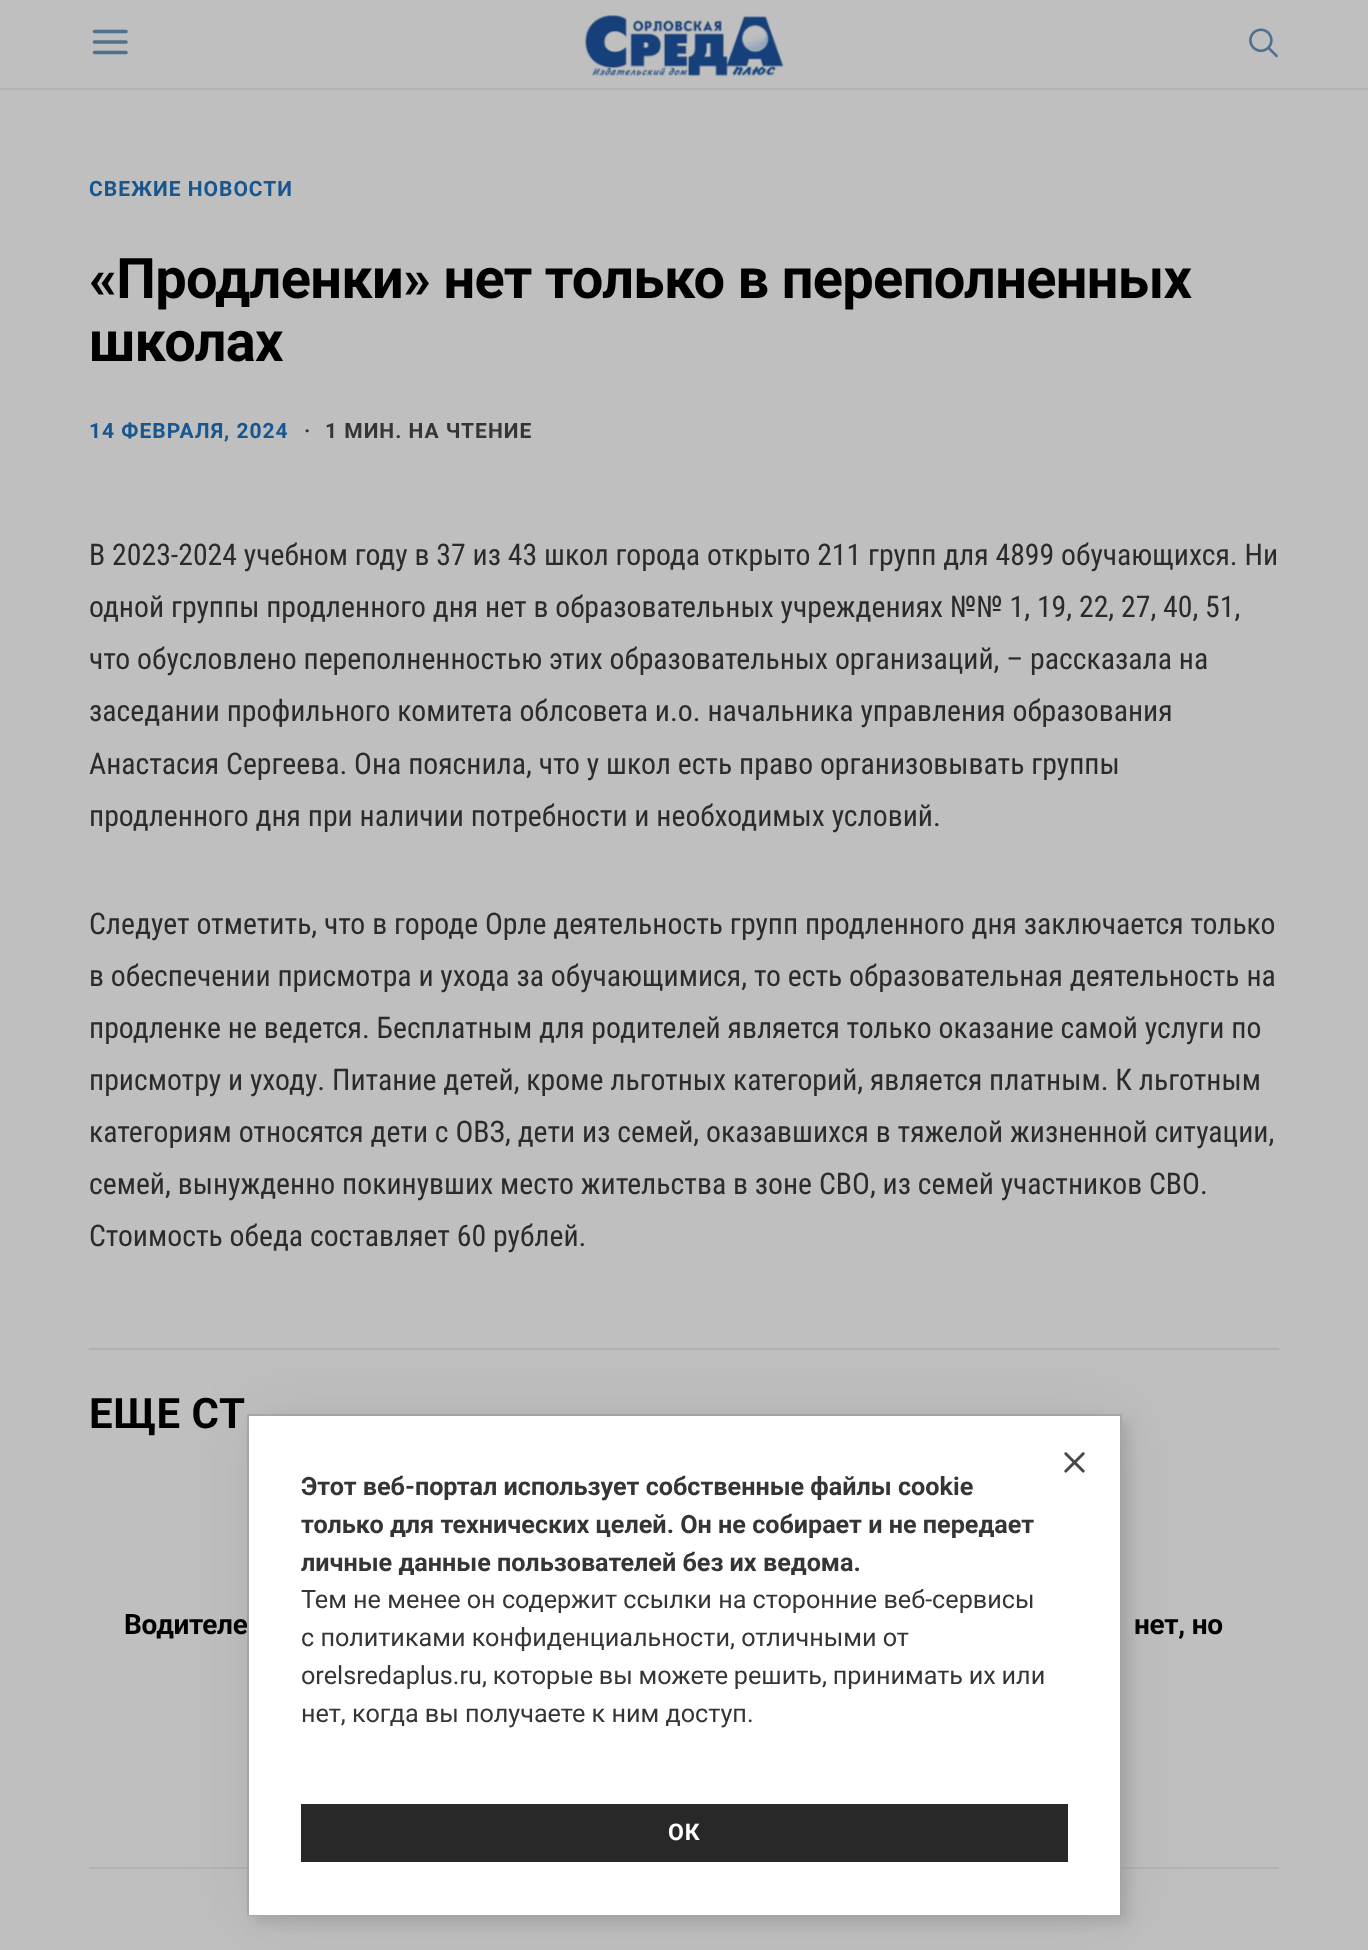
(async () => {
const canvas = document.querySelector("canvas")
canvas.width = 1368
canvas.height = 1950
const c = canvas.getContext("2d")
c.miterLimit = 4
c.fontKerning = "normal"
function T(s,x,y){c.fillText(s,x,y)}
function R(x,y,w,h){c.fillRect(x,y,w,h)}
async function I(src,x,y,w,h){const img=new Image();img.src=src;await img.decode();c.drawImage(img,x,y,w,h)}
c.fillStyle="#bfbfbf"
R(0,0,1368,1950)
c.fillStyle="#b3b3b3"
R(0,88,1368,2)
await I("1.png",92,29,36,26)
await I("2.png",584,15,200,62)
await I("3.png",1249,28,29,30)
R(89,1867,1190,2)
c.letterSpacing="1px"
c.font="bold 21px Roboto"
c.fillStyle="#17568f"
T("СВЕЖИЕ НОВОСТИ",89,196)
c.letterSpacing="-0.7px"
c.font="bold 56px Roboto"
c.fillStyle="#000"
T("«Продленки» нет только в переполненных",89,298)
T("школах",89,361)
c.letterSpacing="1px"
c.font="bold 21px Roboto"
c.fillStyle="#17568f"
T("14 ФЕВРАЛЯ, 2024",89,438)
c.fillStyle="#353535"
T("·",304,438)
T("1 МИН. НА ЧТЕНИЕ",325,438)
c.letterSpacing="0px"
c.font="29.75px Roboto Condensed"
c.fillStyle="#2d2a2c"
T("В 2023-2024 учебном году в 37 из 43 школ города открыто 211 групп для 4899 обучающихся. Ни",89,565)
T("одной группы продленного дня нет в образовательных учреждениях №№ 1, 19, 22, 27, 40, 51,",89,617)
T("что обусловлено переполненностью этих образовательных организаций, – рассказала на",89,669)
T("заседании профильного комитета облсовета и.о. начальника управления образования",89,721)
T("Анастасия Сергеева. Она пояснила, что у школ есть право организовывать группы",89,774)
T("продленного дня при наличии потребности и необходимых условий.",89,826)
T("Следует отметить, что в городе Орле деятельность групп продленного дня заключается только",89,934)
T("в обеспечении присмотра и ухода за обучающимися, то есть образовательная деятельность на",89,986)
T("продленке не ведется. Бесплатным для родителей является только оказание самой услуги по",89,1038)
T("присмотру и уходу. Питание детей, кроме льготных категорий, является платным. К льготным",89,1090)
T("категориям относятся дети с ОВЗ, дети из семей, оказавшихся в тяжелой жизненной ситуации,",89,1142)
T("семей, вынужденно покинувших место жительства в зоне СВО, из семей участников СВО.",89,1194)
T("Стоимость обеда составляет 60 рублей.",89,1246)
c.fillStyle="#afb1b3"
R(89,1348,1190,2)
c.letterSpacing="0.5px"
c.font="bold 42px Roboto"
c.fillStyle="#000"
T("ЕЩЕ СТ",89,1428)
c.letterSpacing="-0.25px"
c.font="bold 28px Roboto"
T("Водителе",124,1634)
T("нет, но",1134,1634)
c.fillStyle="#96969680"
c.filter="blur(7px)"
c.beginPath()
c.rect(254,1421,875,502)
c.fill()
c.filter="none"
c.strokeStyle="#aaa"
c.lineWidth=2
c.strokeRect(248,1415,873,500)
c.fillStyle="#00000012"
c.filter="blur(35px)"
c.beginPath()
c.rect(249,1416,871,499)
c.fill()
c.filter="none"
c.fillStyle="#fff"
R(249,1416,871,499)
await I("4.png",1064,1452,21,21)
c.letterSpacing="0px"
c.font="bold 25.2px Roboto"
c.fillStyle="#353535"
T("Этот веб-портал использует собственные файлы cookie",301,1495)
T("только для технических целей. Он не собирает и не передает",301,1533)
T("личные данные пользователей без их ведома.",301,1571)
c.font="25.2px Roboto"
T("Тем не менее он содержит ссылки на сторонние веб-сервисы",301,1608)
T("с политиками конфиденциальности, отличными от",301,1646)
c.wordSpacing="-0.5px"
T("orelsredaplus.ru, которые вы можете решить, принимать их или",301,1684)
c.wordSpacing="0px"
T("нет, когда вы получаете к ним доступ.",301,1722)
c.fillStyle="#282828"
R(301,1804,767,58)
c.letterSpacing="1px"
c.font="bold 23px Roboto"
c.fillStyle="#fff"
T("ОК",668,1840)
})()
